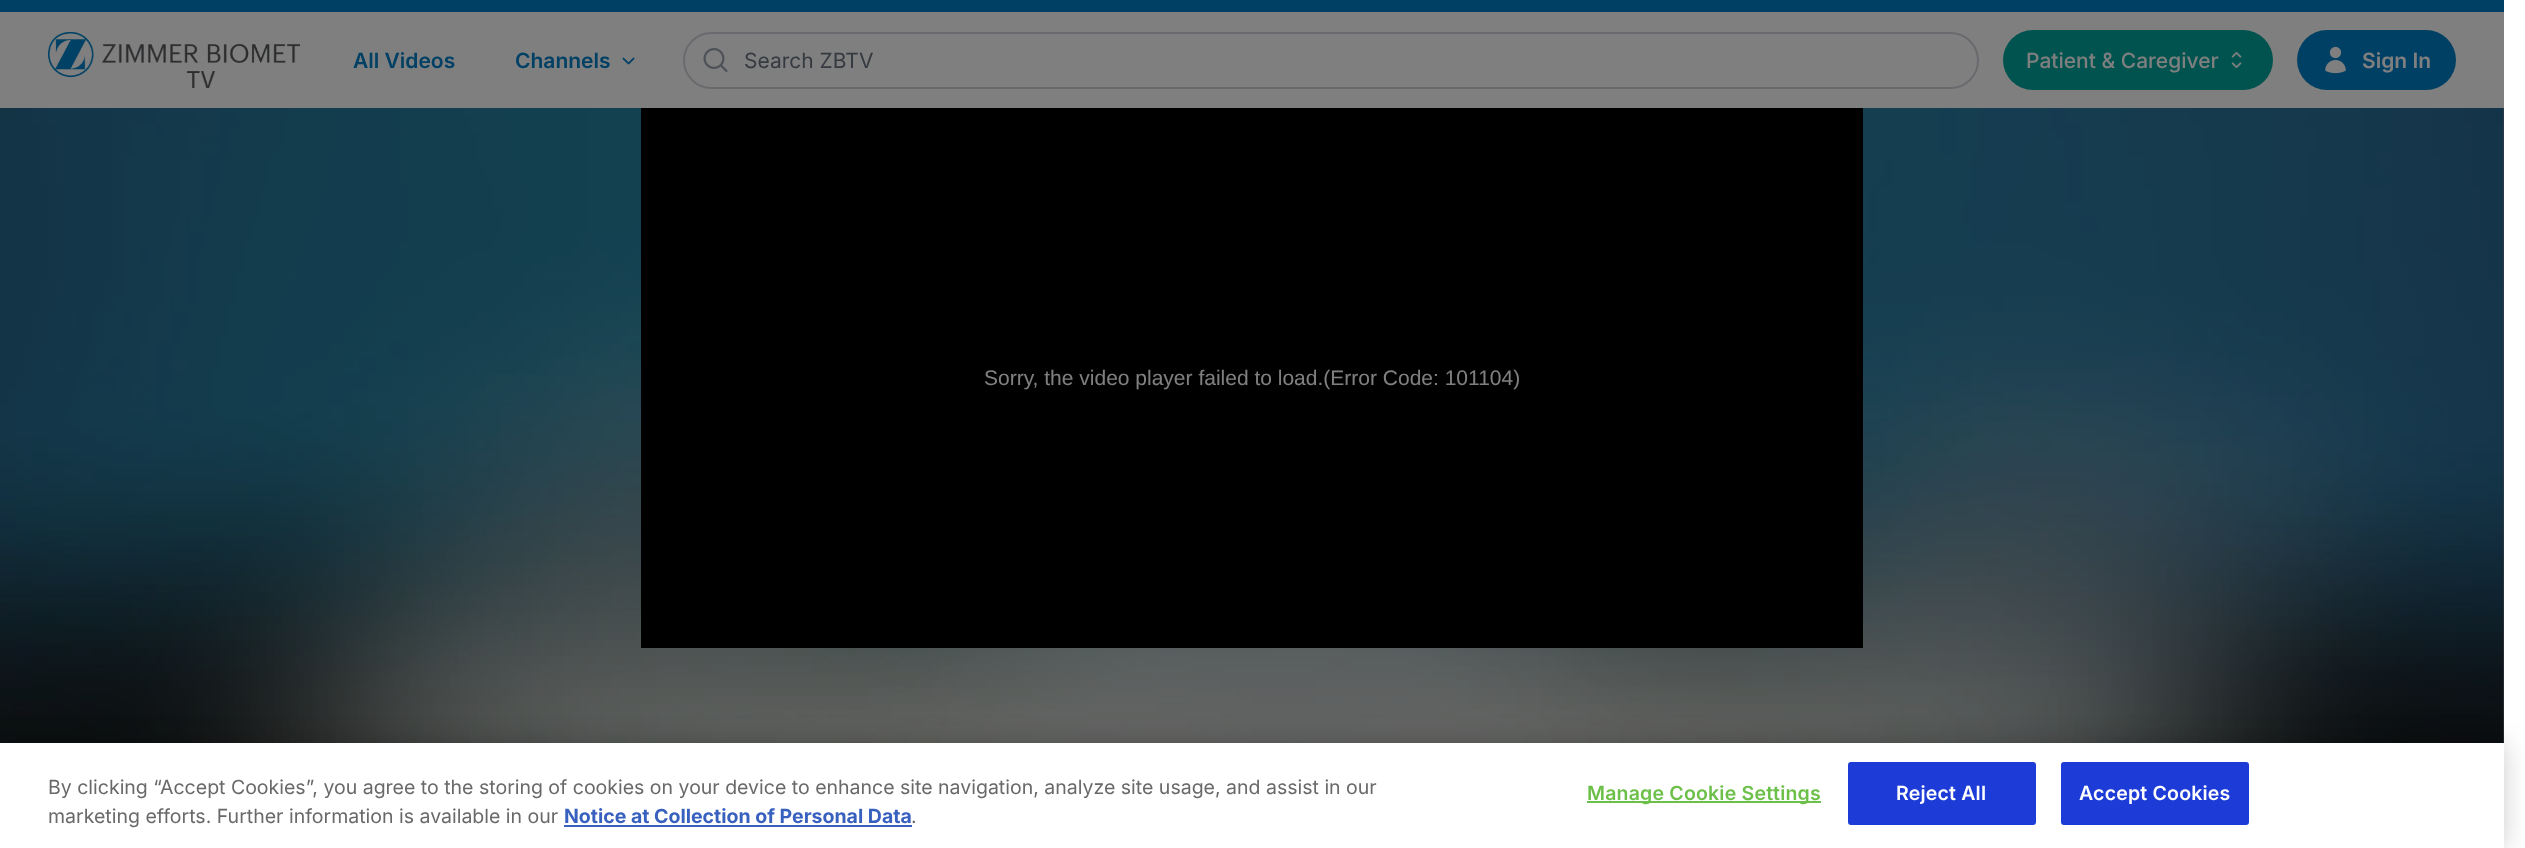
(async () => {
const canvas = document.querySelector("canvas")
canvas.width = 2525
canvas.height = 848
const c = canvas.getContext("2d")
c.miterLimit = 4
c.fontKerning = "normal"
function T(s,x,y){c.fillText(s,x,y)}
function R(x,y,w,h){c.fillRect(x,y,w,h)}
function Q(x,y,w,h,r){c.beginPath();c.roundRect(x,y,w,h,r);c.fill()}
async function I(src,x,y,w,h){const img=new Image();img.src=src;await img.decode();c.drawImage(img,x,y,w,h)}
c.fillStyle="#fff"
R(0,0,2525,848)
c.fillStyle="#0081c9"
R(0,0,2504,12)
await I("1.png",48,32,252,56)
c.font="600 21px Inter"
T("All Videos",353,68)
T("Channels",515,68)
await I("2.png",622,57,13,8)
c.beginPath()
c.roundRect(684,33,1294,55,27.5)
c.strokeStyle="#d1d5db"
c.lineWidth=2
c.stroke()
await I("3.png",703,48,25,24)
c.font="21px Inter"
c.fillStyle="#6b7280"
T("Search ZBTV",744,68)
c.fillStyle="#00a79d"
Q(2003,30,270,60,30)
c.font="500 21px Inter"
c.fillStyle="#fff"
T("Patient & Caregiver",2026,68)
await I("4.png",2231,51,11,17)
c.fillStyle="#0081c9"
Q(2297,30,159,60,30)
await I("5.png",2325,46,21,28)
c.font="600 21px Inter"
c.fillStyle="#fff"
T("Sign In",2362,68)
c.fillStyle="#858585"
R(2503,108,1,635)
await I("6.png",0,108,2504,635)
c.fillStyle="#000"
R(641,108,1222,540)
c.font="21px Liberation Sans"
c.fillStyle="#fff"
T("Sorry, the video player failed to load.(Error Code: 101104)",984,385)
c.fillStyle="#00000080"
R(0,0,2504,743)
c.fillStyle="#00000033"
c.filter="blur(13.5px)"
c.beginPath()
c.rect(0,743,2504,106)
c.fill()
c.filter="none"
c.fillStyle="#fff"
R(0,743,2504,105)
c.font="19.5px Inter"
c.fillStyle="#696969"
T("By clicking “Accept Cookies”, you agree to the storing of cookies on your device to enhance site navigation, analyze site usage, and assist in our",48,794)
T("marketing efforts. Further information is available in our",48,823)
c.font="bold 19.5px Inter"
c.fillStyle="#3860be"
T("Notice at Collection of Personal Data",564,823)
R(564,825,348,2)
c.font="19.5px Inter"
c.fillStyle="#696969"
T(".",911,823)
c.fillStyle="#6cc04a"
R(1587,801,234,2)
c.letterSpacing="0.2px"
c.font="600 19.5px Inter"
T("Manage Cookie Settings",1587,800)
c.fillStyle="#1d3cd7"
c.beginPath()
c.roundRect(1849,763,186,61,2)
c.fill()
c.strokeStyle="#1d3cd7"
c.stroke()
c.fillStyle="#fff"
T("Reject All",1896,800)
c.fillStyle="#1d3cd7"
c.beginPath()
c.roundRect(2062,763,186,61,2)
c.fill()
c.stroke()
c.fillStyle="#fff"
T("Accept Cookies",2079,800)
})()
